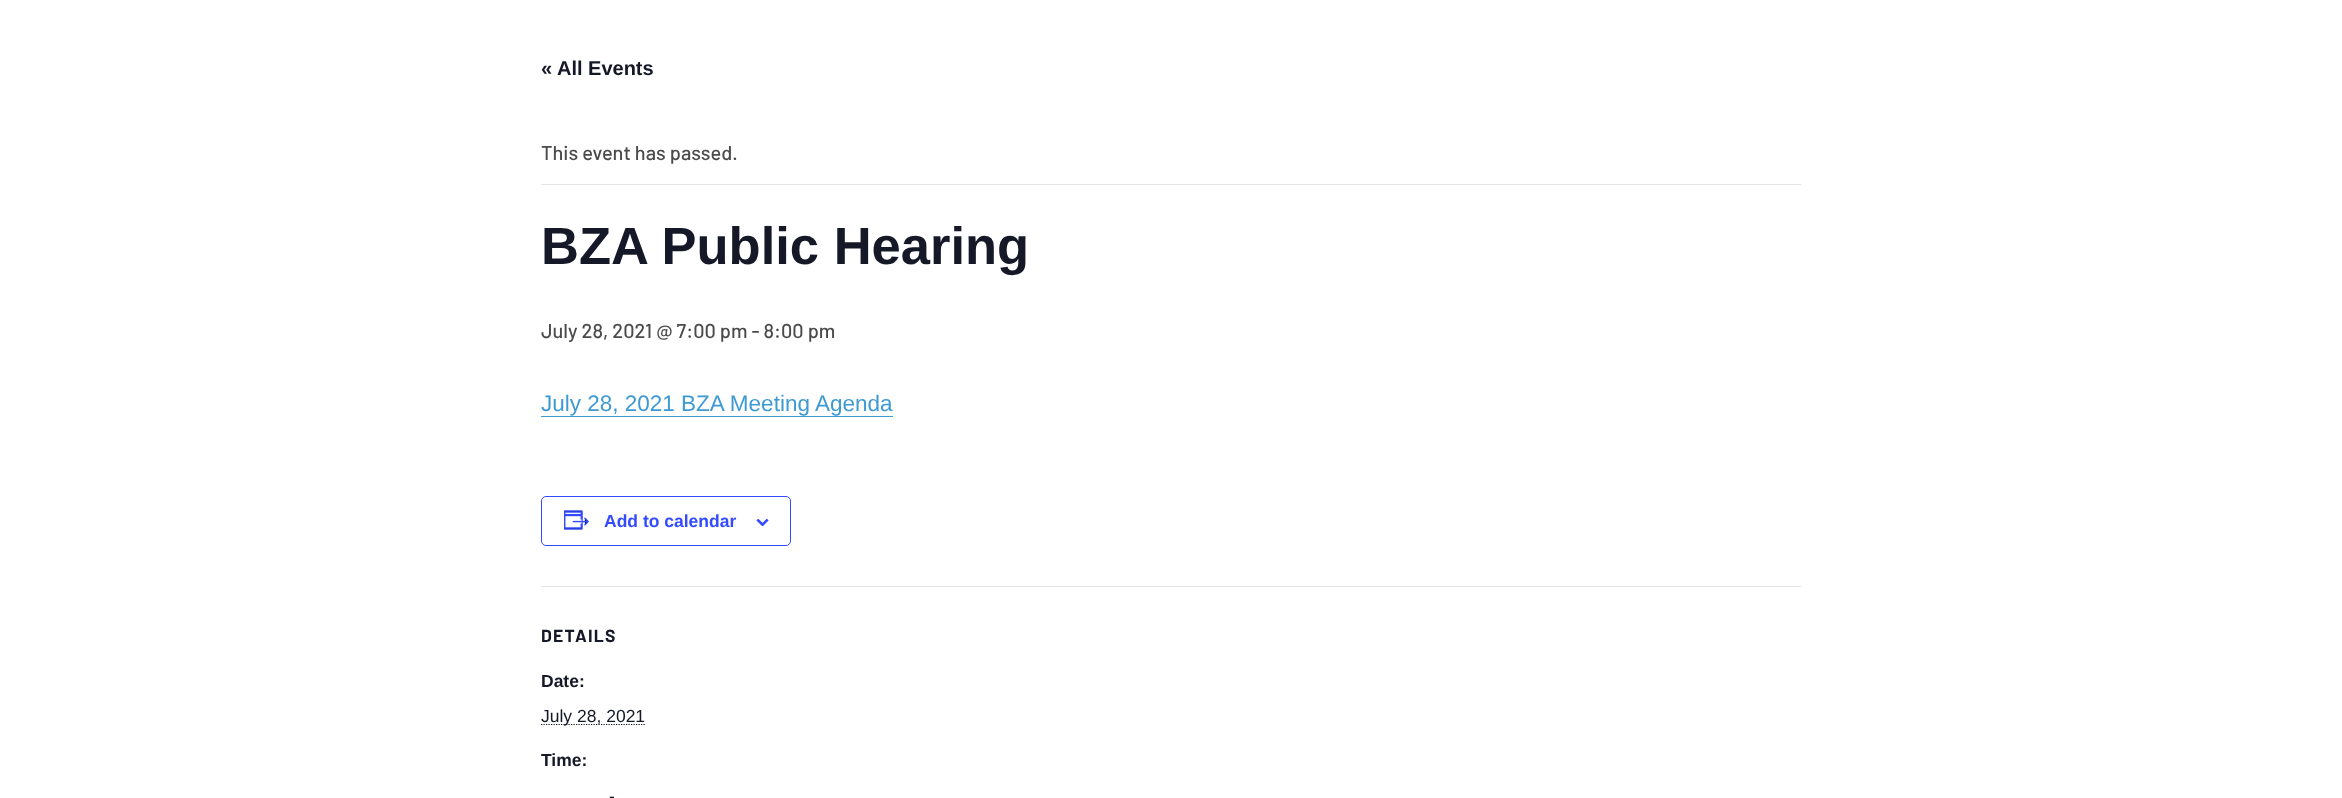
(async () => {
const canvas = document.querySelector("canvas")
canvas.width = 2342
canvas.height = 798
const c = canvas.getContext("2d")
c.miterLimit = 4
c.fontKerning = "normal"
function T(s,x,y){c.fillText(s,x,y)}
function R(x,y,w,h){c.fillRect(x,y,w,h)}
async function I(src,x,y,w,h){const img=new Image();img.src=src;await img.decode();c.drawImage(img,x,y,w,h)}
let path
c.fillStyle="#fff"
R(0,0,2342,798)
c.font="bold 20px Liberation Sans"
c.fillStyle="#141827"
T("« All Events",541,75)
c.fillStyle="#e4e4e4"
R(541,184,1260,1)
c.font="500 20px Barlow"
c.fillStyle="#4b4b4b"
T("This event has passed.",541,160)
c.font="bold 52.5px Liberation Sans"
c.fillStyle="#141827"
T("BZA Public Hearing",541,264)
c.font="500 20px Barlow"
c.fillStyle="#4b4b4b"
T("July 28, 2021 @ 7:00 pm - 8:00 pm",541,338)
c.font="22.5px Liberation Sans"
c.fillStyle="#3e9ad2"
T("July 28, 2021 BZA Meeting Agenda",541,411)
R(541,416,352,1)
c.beginPath()
c.roundRect(541.5,496.5,249,49,4.5)
c.strokeStyle="#334aff"
c.stroke()
await I("1.png",564,510,25,20)
c.font="bold 17.5px Liberation Sans"
c.fillStyle="#334aff"
T("Add to calendar",604,527)
await I("2.png",756,519,13,7)
c.fillStyle="#e4e4e4"
R(541,586,1260,1)
c.letterSpacing="1.25px"
c.font="bold 17.5px Barlow"
c.fillStyle="#141827"
T("DETAILS",541,642)
c.letterSpacing="0px"
c.font="bold 17.5px Liberation Sans"
T("Date:",541,687)
path = new Path2D("M541 724.5h104.5")
c.strokeStyle="#141827"
c.lineWidth=1.2
c.setLineDash([1.25,1.25])
c.stroke(path)
c.font="17.5px Liberation Sans"
T("July 28, 2021",541,722)
c.font="bold 17.5px Liberation Sans"
T("Time:",541,766)
c.font="17.5px Liberation Sans"
T("-",609,802)
})()
